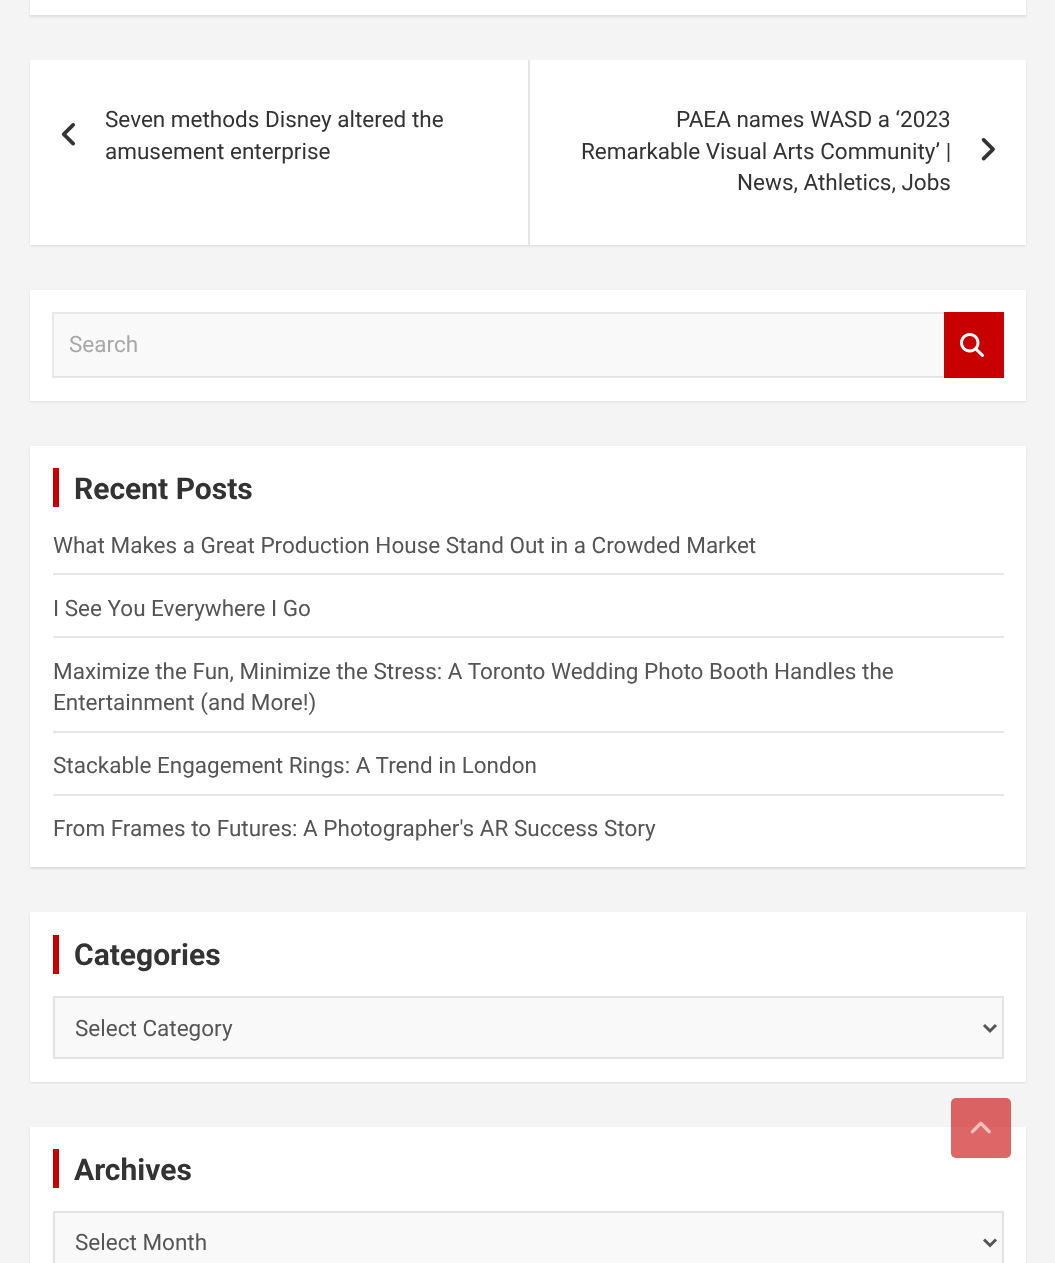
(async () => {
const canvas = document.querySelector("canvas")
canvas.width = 1055
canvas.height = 1263
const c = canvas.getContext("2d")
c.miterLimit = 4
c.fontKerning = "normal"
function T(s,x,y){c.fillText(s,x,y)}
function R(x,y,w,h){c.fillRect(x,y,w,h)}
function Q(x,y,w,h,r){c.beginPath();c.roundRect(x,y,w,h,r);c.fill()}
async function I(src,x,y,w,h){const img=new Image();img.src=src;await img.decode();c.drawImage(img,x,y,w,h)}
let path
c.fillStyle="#f4f4f4"
R(0,0,1055,1263)
c.fillStyle="#0000001a"
c.filter="blur(1px)"
c.beginPath()
c.rect(30,-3,996,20)
c.fill()
c.filter="none"
c.fillStyle="#fff"
R(30,0,996,15)
c.fillStyle="#0000001a"
c.filter="blur(1px)"
c.beginPath()
c.rect(30,62,996,184)
c.fill()
c.filter="none"
c.fillStyle="#fff"
R(30,60,996,185)
await I("1.png",61,123,14,23)
c.font="22.5px Roboto"
c.fillStyle="#333"
T("Seven methods Disney altered the",105,127)
T("amusement enterprise",105,159)
c.fillStyle="#e6e6e6"
R(528,60,2,185)
c.fillStyle="#333"
T("PAEA names WASD a ‘2023",676,127)
T("Remarkable Visual Arts Community’ |",581,159)
await I("2.png",981,138,14,23)
T("News, Athletics, Jobs",737,190)
c.fillStyle="#0000001a"
c.filter="blur(1px)"
c.beginPath()
c.rect(30,291,996,111)
c.fill()
c.filter="none"
c.fillStyle="#fff"
R(30,290,996,111)
c.fillStyle="#f9f9f9"
R(54,314,890,63)
c.fillStyle="#e8e8e8"
path = new Path2D("M52 312h892v2h-890z")
c.fill(path)
c.fillStyle="#00000017"
path = new Path2D("M944 378h-892l2-2h890z")
c.fill(path)
path = new Path2D("M52 378v-66l2 2v62z")
c.fill(path)
c.fillStyle="#a7a7a7"
T("Search",69,352)
c.fillStyle="#c80000"
R(944,312,60,66)
await I("3.png",960,333,24,24)
c.fillStyle="#0000001a"
c.filter="blur(1px)"
c.beginPath()
c.rect(30,447,996,422)
c.fill()
c.filter="none"
c.fillStyle="#fff"
R(30,446,996,421)
c.fillStyle="#c80000"
R(53,468,6,39)
c.font="bold 30px Roboto"
c.fillStyle="#333"
T("Recent Posts",74,499)
c.fillStyle="#e6e6e6"
R(53,573,951,2)
c.font="22.5px Roboto"
c.fillStyle="#555"
T("What Makes a Great Production House Stand Out in a Crowded Market",53,553)
c.fillStyle="#e6e6e6"
R(53,636,951,2)
c.fillStyle="#555"
T("I See You Everywhere I Go",53,616)
c.fillStyle="#e6e6e6"
R(53,731,951,2)
c.fillStyle="#555"
T("Maximize the Fun, Minimize the Stress: A Toronto Wedding Photo Booth Handles the",53,679)
T("Entertainment (and More!)",53,710)
c.fillStyle="#e6e6e6"
R(53,794,951,2)
c.fillStyle="#555"
T("Stackable Engagement Rings: A Trend in London",53,773)
T("From Frames to Futures: A Photographer's AR Success Story",53,836)
c.fillStyle="#0000001a"
c.filter="blur(1px)"
c.beginPath()
c.rect(30,914,996,169)
c.fill()
c.filter="none"
c.fillStyle="#fff"
R(30,912,996,170)
c.fillStyle="#c80000"
R(53,935,6,39)
c.font="bold 30px Roboto"
c.fillStyle="#333"
T("Categories",74,965)
c.fillStyle="#f9f9f9"
c.beginPath()
c.rect(54,997,949,61)
c.fill()
c.strokeStyle="#e3e3e3"
c.lineWidth=2
c.stroke()
path = new Path2D("M984 1025l6 6l6-6")
c.strokeStyle="#555"
c.lineWidth=3
c.stroke(path)
c.font="22.5px Roboto"
c.fillStyle="#555"
T("Select Category",75,1036)
c.fillStyle="#0000001a"
c.filter="blur(1px)"
c.beginPath()
c.rect(30,1128,996,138)
c.fill()
c.filter="none"
c.fillStyle="#fff"
R(30,1127,996,136)
c.fillStyle="#c80000"
R(53,1149,6,39)
c.font="bold 30px Roboto"
c.fillStyle="#333"
T("Archives",74,1180)
c.fillStyle="#f9f9f9"
c.beginPath()
c.rect(54,1212,949,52)
c.fill()
c.strokeStyle="#e3e3e3"
c.lineWidth=2
c.stroke()
path = new Path2D("M984 1239.5l6 6l6-6")
c.strokeStyle="#555"
c.lineWidth=3
c.stroke(path)
c.font="22.5px Roboto"
c.fillStyle="#555"
T("Select Month",75,1250)
c.fillStyle="#c8000099"
Q(951,1098,60,60,5)
await I("4.png",970,1121,21,13)
})()
